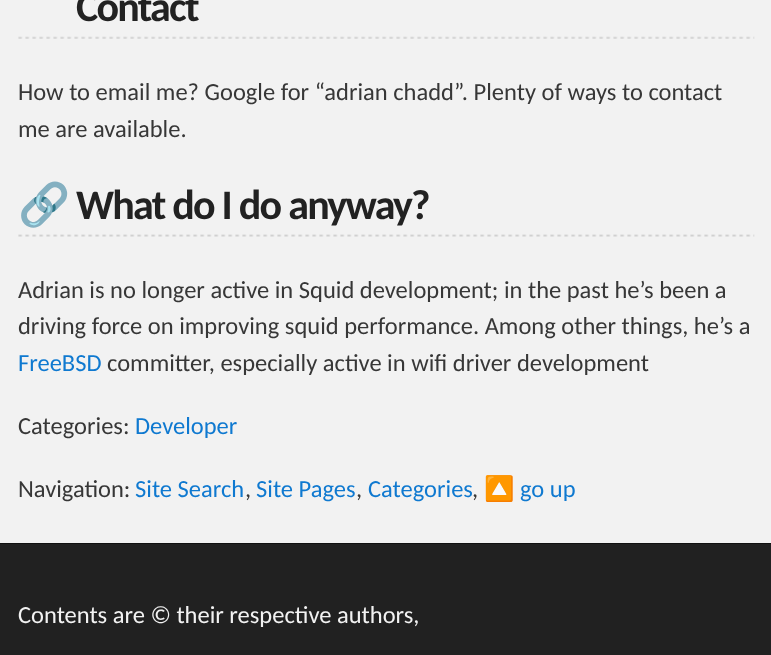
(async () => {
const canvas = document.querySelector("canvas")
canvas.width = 771
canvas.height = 655
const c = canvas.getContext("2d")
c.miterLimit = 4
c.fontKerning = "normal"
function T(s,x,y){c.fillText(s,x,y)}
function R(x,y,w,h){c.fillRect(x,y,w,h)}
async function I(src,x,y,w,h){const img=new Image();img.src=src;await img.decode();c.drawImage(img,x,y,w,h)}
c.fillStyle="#f2f2f2"
R(0,0,771,655)
c.fillStyle="#111"
R(0,543,771,1)
await I("1.png",18,36,737,3)
c.letterSpacing="-1.75px"
c.font="bold 42px Carlito"
c.fillStyle="#222"
T("Contact",76,21)
c.letterSpacing="0px"
c.font="24.5px Carlito"
c.fillStyle="#373737"
T("How to email me? Google for “adrian chadd”. Plenty of ways to contact",18,100)
T("me are available.",18,137)
await I("2.png",18,234,737,3)
c.letterSpacing="-1.75px"
c.font="bold 42px Noto Color Emoji"
c.fillStyle="#0f79d0"
T("🔗",18,219)
c.font="bold 42px Carlito"
c.fillStyle="#222"
T("What do I do anyway?",76,219)
c.letterSpacing="0px"
c.font="24.5px Carlito"
c.fillStyle="#373737"
T("Adrian is no longer active in Squid development; in the past he’s been a",18,298)
T("driving force on improving squid performance. Among other things, he’s a",18,334)
c.fillStyle="#0f79d0"
T("FreeBSD",18,371)
c.fillStyle="#373737"
T("committer, especially active in wifi driver development",107,371)
T("Categories:",18,434)
c.fillStyle="#0f79d0"
T("Developer",135,434)
c.fillStyle="#373737"
T("Navigation:",18,497)
c.fillStyle="#0f79d0"
T("Site Search",135,497)
c.fillStyle="#373737"
T(",",245,497)
c.fillStyle="#0f79d0"
T("Site Pages",256,497)
c.fillStyle="#373737"
T(",",356,497)
c.fillStyle="#0f79d0"
T("Categories",368,497)
c.fillStyle="#373737"
T(",",472,497)
c.font="24.5px Noto Color Emoji"
c.fillStyle="#0f79d0"
T("🔼",484,497)
c.font="24.5px Carlito"
T("go up",520,497)
c.fillStyle="#212121"
R(0,544,771,111)
c.fillStyle="#f2f2f2"
T("Contents are © their respective authors,",18,623)
})()
